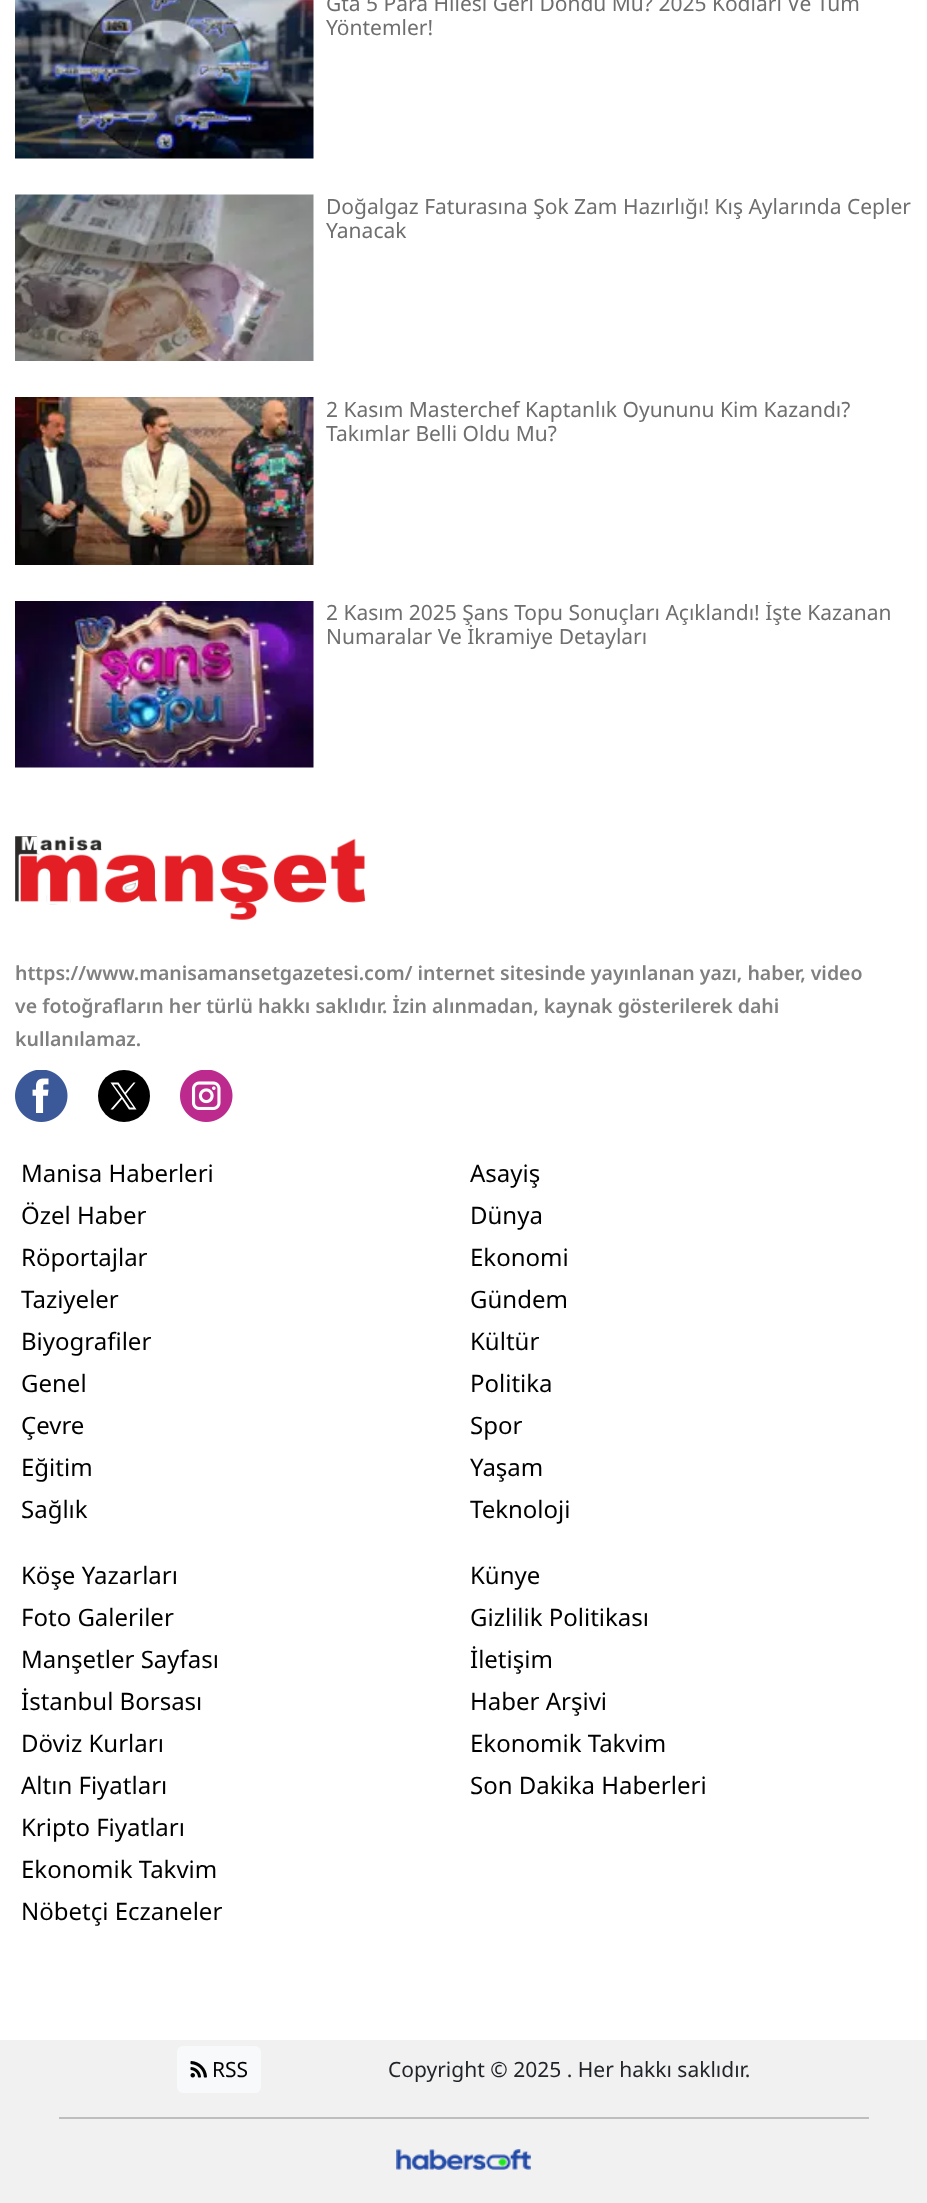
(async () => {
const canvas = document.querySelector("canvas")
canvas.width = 927
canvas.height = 2203
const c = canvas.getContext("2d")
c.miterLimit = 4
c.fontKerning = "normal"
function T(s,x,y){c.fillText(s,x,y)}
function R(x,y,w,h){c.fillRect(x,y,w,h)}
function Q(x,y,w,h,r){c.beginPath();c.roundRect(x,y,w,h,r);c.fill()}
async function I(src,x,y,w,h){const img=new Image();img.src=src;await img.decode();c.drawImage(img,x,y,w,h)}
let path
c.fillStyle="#f1f1f1"
R(0,0,927,2203)
c.fillStyle="#fff"
R(0,0,927,2040)
await I("1.png",15,0,299,159)
c.font="21px Noto Sans"
c.fillStyle="#6e6e6e"
T("Gta 5 Para Hilesi Geri Döndü Mü? 2025 Kodları Ve Tüm",326,11)
T("Yöntemler!",326,35)
await I("2.png",15,194,299,167)
T("Doğalgaz Faturasına Şok Zam Hazırlığı! Kış Aylarında Cepler",326,214)
T("Yanacak",326,238)
await I("3.png",15,397,299,168)
T("2 Kasım Masterchef Kaptanlık Oyununu Kim Kazandı?",326,417)
T("Takımlar Belli Oldu Mu?",326,441)
await I("4.png",15,601,299,167)
c.save()
c.beginPath()
c.rect(314,602,598,48)
c.clip()
T("2 Kasım 2025 Şans Topu Sonuçları Açıklandı! İşte Kazanan",326,620)
c.restore()
T("Numaralar Ve İkramiye Detayları",326,644)
await I("5.png",15,836,351,84)
c.font="600 19.5px Noto Sans"
c.fillStyle="#808080"
T("https://www.manisamansetgazetesi.com/ internet sitesinde yayınlanan yazı, haber, video",15,980)
T("ve fotoğrafların her türlü hakkı saklıdır. İzin alınmadan, kaynak gösterilerek dahi",15,1013)
T("kullanılamaz.",15,1046)
await I("6.png",15,1070,53,52)
c.fillStyle="#000"
c.beginPath()
c.arc(124,1096,26,0,7)
c.fill()
c.fillStyle="#fff"
path = new Path2D("M126 1094l9.5-11.5h-2l-8.5 10l-6.5-10h-8l10.5 15l-10.5 12h2.5l9-10.5l7 10.5h7.5zm-3 3.5l-9.5-13h4l16 23h-3.5z")
c.fill(path)
await I("7.png",180,1070,53,52)
c.font="24px Noto Sans"
c.fillStyle="#000"
T("Manisa Haberleri",21,1182)
T("Özel Haber",21,1224)
T("Röportajlar",21,1266)
T("Taziyeler",21,1308)
T("Biyografiler",21,1350)
T("Genel",21,1392)
T("Çevre",21,1434)
T("Eğitim",21,1476)
T("Sağlık",21,1518)
T("Asayiş",470,1182)
T("Dünya",470,1224)
T("Ekonomi",470,1266)
T("Gündem",470,1308)
T("Kültür",470,1350)
T("Politika",470,1392)
T("Spor",470,1434)
T("Yaşam",470,1476)
T("Teknoloji",470,1518)
T("Köşe Yazarları",21,1584)
T("Foto Galeriler",21,1626)
T("Manşetler Sayfası",21,1668)
T("İstanbul Borsası",21,1710)
T("Döviz Kurları",21,1752)
T("Altın Fiyatları",21,1794)
T("Kripto Fiyatları",21,1836)
T("Ekonomik Takvim",21,1878)
T("Nöbetçi Eczaneler",21,1920)
T("Künye",470,1584)
T("Gizlilik Politikası",470,1626)
T("İletişim",470,1668)
T("Haber Arşivi",470,1710)
T("Ekonomik Takvim",470,1752)
T("Son Dakika Haberleri",470,1794)
c.fillStyle="#f8f9fa"
Q(177,2046,84,47,6)
await I("8.png",190,2061,17,17)
c.font="21px Noto Sans"
c.fillStyle="#000"
T("RSS",212,2077)
c.fillStyle="#212529"
T("Copyright © 2025 . Her hakkı saklıdır.",388,2077)
c.fillStyle="#bdbebf"
R(59,2117,810,2)
await I("9.png",396,2149,135,21)
})()
